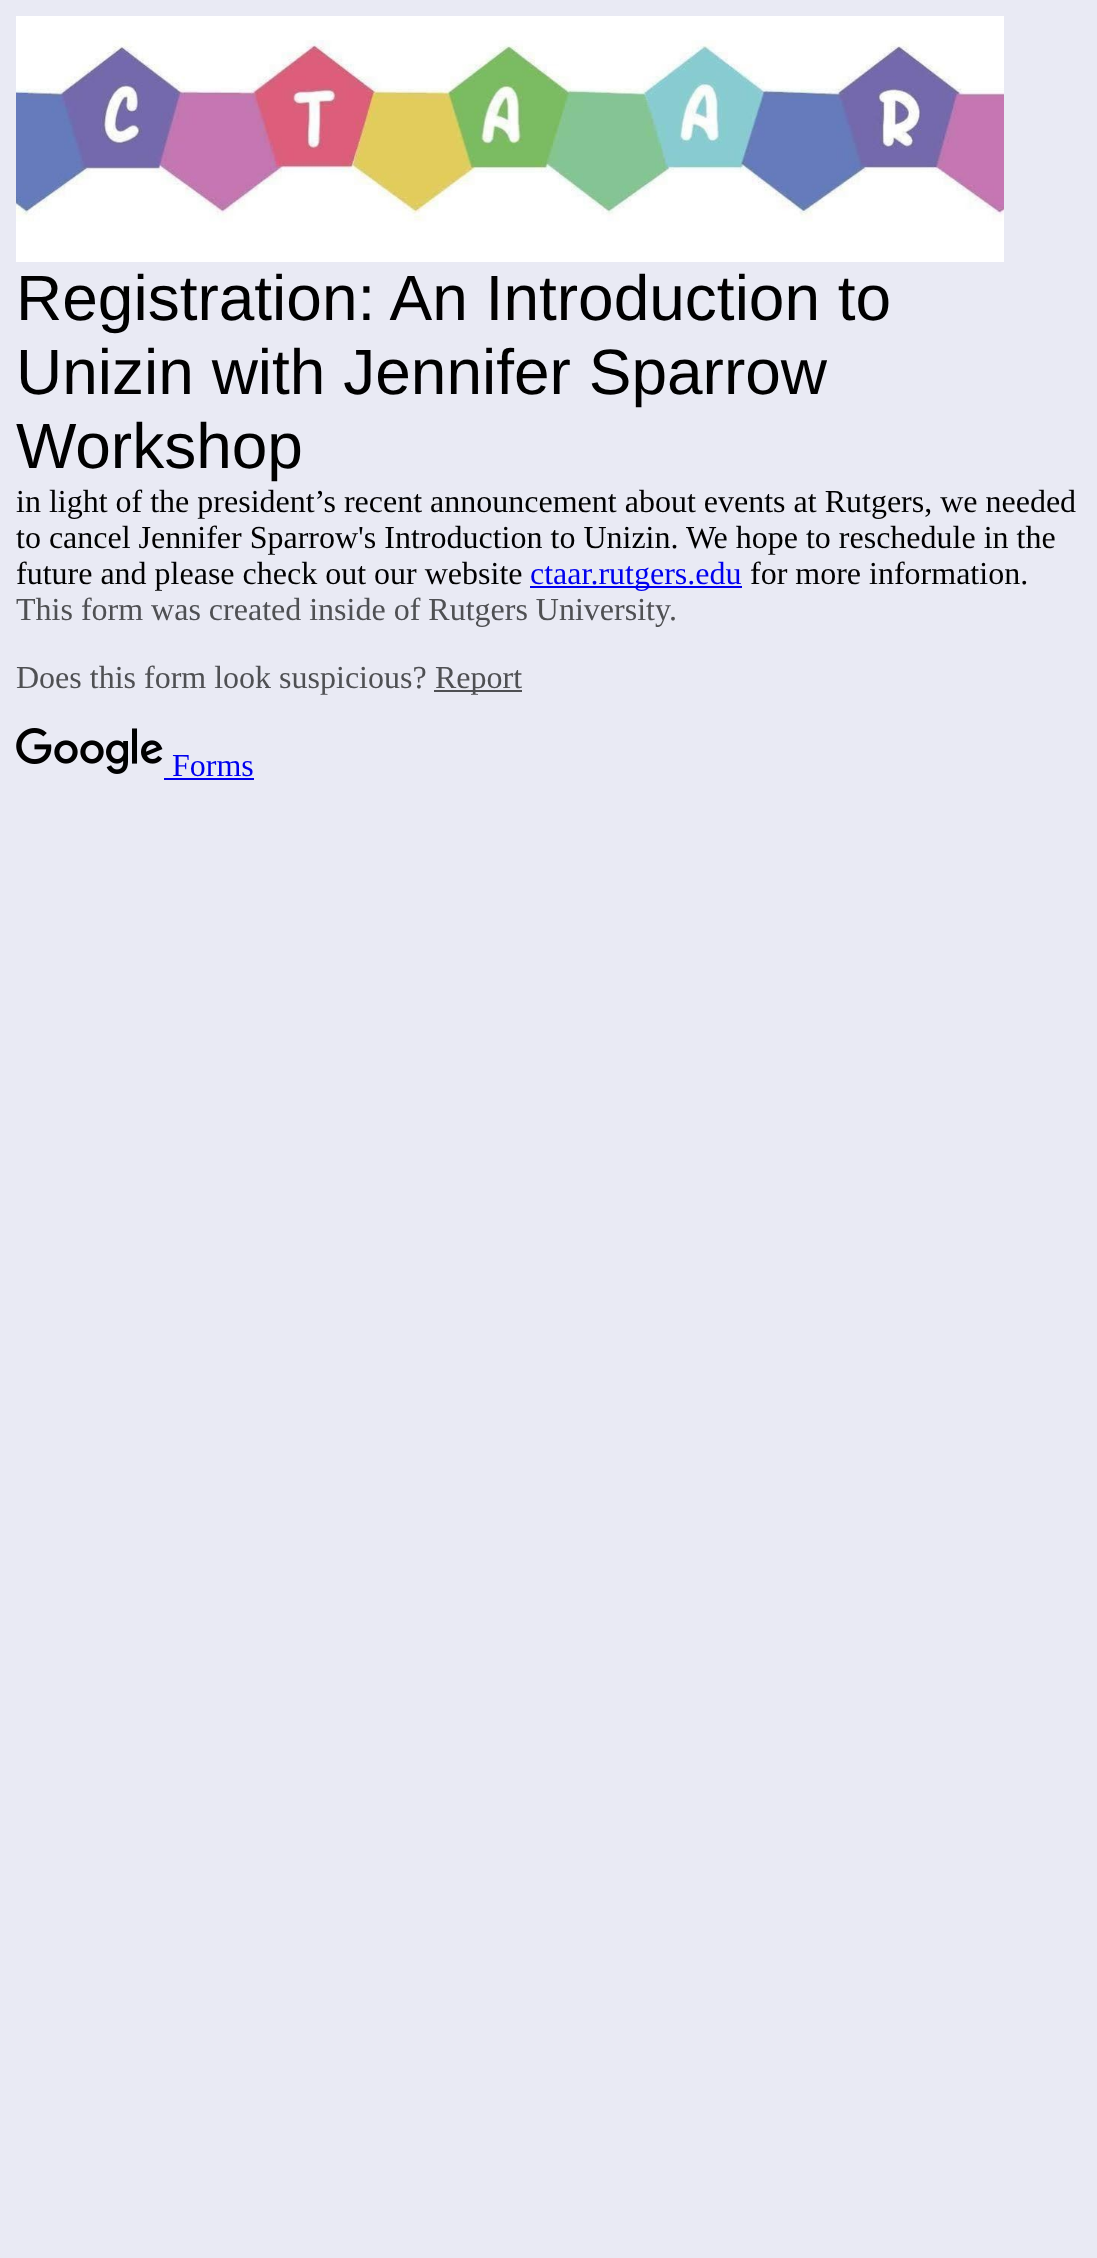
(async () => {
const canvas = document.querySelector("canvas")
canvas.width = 1097
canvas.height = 2258
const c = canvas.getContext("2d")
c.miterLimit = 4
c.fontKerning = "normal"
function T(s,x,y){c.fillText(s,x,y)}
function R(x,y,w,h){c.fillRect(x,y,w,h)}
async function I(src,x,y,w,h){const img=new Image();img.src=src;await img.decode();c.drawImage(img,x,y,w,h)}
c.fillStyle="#e9eaf4"
R(0,0,1097,2258)
await I("1.png",16,16,988,246)
c.font="64px Liberation Sans"
c.fillStyle="#000"
T("Registration: An Introduction to",16,320)
T("Unizin with Jennifer Sparrow",16,394)
T("Workshop",16,468)
c.font="32px Liberation Serif"
T("in light of the president’s recent announcement about events at Rutgers, we needed",16,512)
T("to cancel Jennifer Sparrow's Introduction to Unizin. We hope to reschedule in the",16,548)
T("future and please check out our website",16,584)
c.fillStyle="#00e"
R(530,586,212,2)
T("ctaar.rutgers.edu",530,584)
c.fillStyle="#000"
T("for more information.",750,584)
c.fillStyle="#4f5053"
T("This form was created inside of Rutgers University.",16,620)
T("Does this form look suspicious?",16,688)
R(434,690,88,2)
T("Report",435,688)
await I("2.png",16,728,147,46)
c.fillStyle="#00e"
T("Forms",172,776)
R(164,778,90,2)
})()
